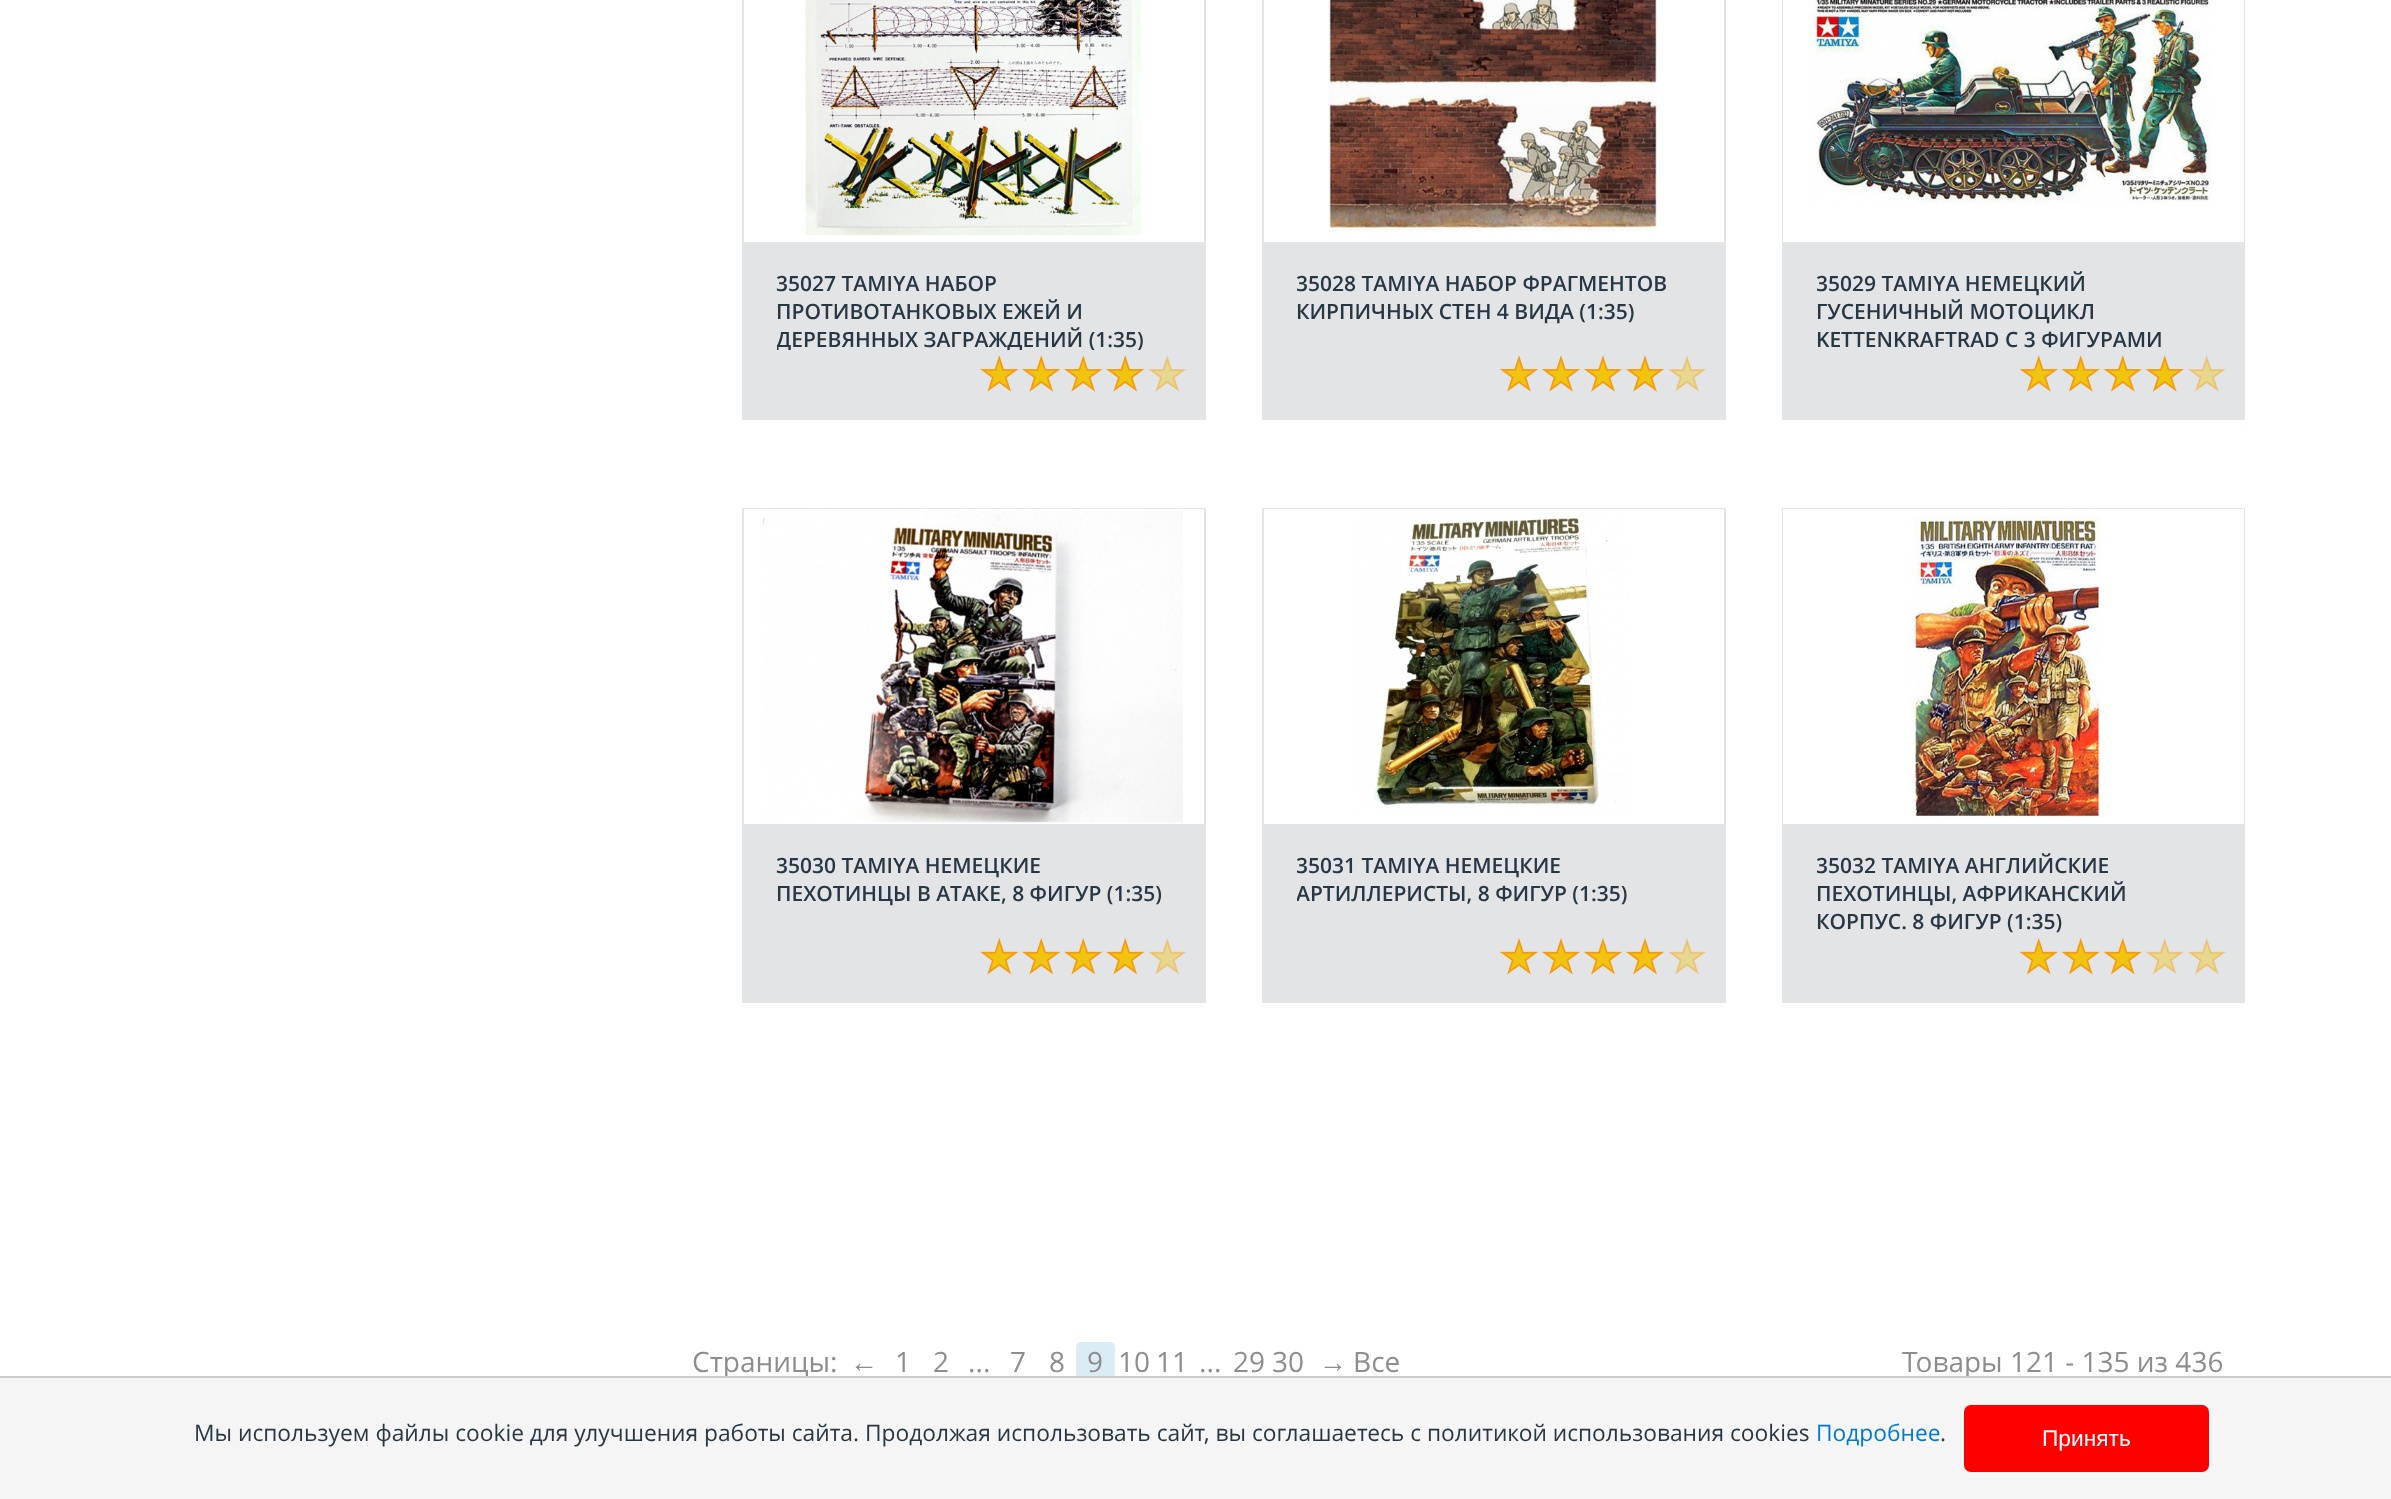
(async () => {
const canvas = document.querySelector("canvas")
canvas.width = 2391
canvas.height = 1499
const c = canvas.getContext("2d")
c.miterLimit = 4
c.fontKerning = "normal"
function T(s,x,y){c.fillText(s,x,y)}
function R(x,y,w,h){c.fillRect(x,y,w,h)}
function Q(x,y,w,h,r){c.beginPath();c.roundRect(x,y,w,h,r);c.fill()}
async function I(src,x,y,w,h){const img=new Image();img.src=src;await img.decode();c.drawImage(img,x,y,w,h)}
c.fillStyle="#fff"
R(0,0,2391,1499)
c.strokeStyle="#e3e4e5"
c.lineWidth=2
c.strokeRect(743,-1,462,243)
R(744,241,460,1)
await I("1.png",805,0,336,236)
c.fillStyle="#e3e4e5"
R(742,243,464,177)
c.font="600 21px Open Sans"
c.fillStyle="#273845"
T("35027 TAMIYA НАБОР",776,291)
T("ПРОТИВОТАНКОВЫХ ЕЖЕЙ И",776,319)
c.save()
c.beginPath()
c.rect(777,270,394,80)
c.clip()
T("ДЕРЕВЯННЫХ ЗАГРАЖДЕНИЙ (1:35)",776,347)
c.restore()
await I("2.png",980,355,39,37)
await I("2.png",1022,355,39,37)
await I("2.png",1064,355,39,37)
await I("2.png",1106,355,39,37)
await I("3.png",1148,355,39,37)
c.strokeRect(1263,-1,462,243)
c.fillStyle="#fff"
R(1264,241,460,1)
await I("4.png",1328,0,330,232)
c.fillStyle="#e3e4e5"
R(1262,243,464,177)
c.save()
c.beginPath()
c.rect(1297,270,394,80)
c.clip()
c.fillStyle="#273845"
T("35028 TAMIYA НАБОР ФРАГМЕНТОВ",1296,291)
c.restore()
c.fillStyle="#273845"
T("КИРПИЧНЫХ СТЕН 4 ВИДА (1:35)",1296,319)
await I("5.png",1499,355,40,37)
await I("5.png",1541,355,40,37)
await I("5.png",1583,355,40,37)
await I("5.png",1625,355,40,37)
await I("6.png",1668,355,38,37)
c.strokeRect(1783,-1,461,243)
c.fillStyle="#fff"
R(1783,0,461,242)
await I("7.png",1808,0,404,206)
c.fillStyle="#e3e4e5"
R(1782,243,463,177)
c.save()
c.beginPath()
c.rect(1817,270,393,80)
c.clip()
c.fillStyle="#273845"
T("35029 TAMIYA НЕМЕЦКИЙ",1816,291)
c.restore()
c.fillStyle="#273845"
T("ГУСЕНИЧНЫЙ МОТОЦИКЛ",1816,319)
T("KETTENKRAFTRAD С 3 ФИГУРАМИ",1816,347)
await I("8.png",2019,355,39,37)
await I("8.png",2061,355,39,37)
await I("8.png",2103,355,39,37)
await I("8.png",2145,355,39,37)
await I("9.png",2187,355,39,37)
c.strokeRect(743,509,462,316)
c.fillStyle="#fff"
R(744,509,460,1)
await I("10.png",763,511,420,312)
c.fillStyle="#e3e4e5"
R(742,826,464,177)
c.fillStyle="#273845"
T("35030 TAMIYA НЕМЕЦКИЕ",776,873)
T("ПЕХОТИНЦЫ В АТАКЕ, 8 ФИГУР (1:35)",776,901)
await I("11.png",980,938,39,37)
await I("11.png",1022,938,39,37)
await I("11.png",1064,938,39,37)
await I("11.png",1106,938,39,37)
await I("12.png",1148,938,38,37)
c.strokeRect(1263,509,462,316)
c.fillStyle="#fff"
R(1264,509,460,1)
await I("13.png",1354,512,275,302)
c.fillStyle="#e3e4e5"
R(1262,826,464,177)
c.save()
c.beginPath()
c.rect(1297,852,394,81)
c.clip()
c.fillStyle="#273845"
T("35031 TAMIYA НЕМЕЦКИЕ",1296,873)
T("АРТИЛЛЕРИСТЫ, 8 ФИГУР (1:35)",1296,901)
c.restore()
await I("14.png",1500,938,38,37)
await I("14.png",1542,938,38,37)
await I("14.png",1584,938,38,37)
await I("14.png",1626,938,38,37)
await I("15.png",1668,938,38,37)
c.strokeRect(1783,509,461,316)
c.fillStyle="#fff"
R(1783,509,461,315)
await I("16.png",1908,514,194,303)
c.fillStyle="#e3e4e5"
R(1782,826,463,177)
c.save()
c.beginPath()
c.rect(1817,852,393,81)
c.clip()
c.fillStyle="#273845"
T("35032 TAMIYA АНГЛИЙСКИЕ",1816,873)
c.restore()
c.fillStyle="#273845"
T("ПЕХОТИНЦЫ, АФРИКАНСКИЙ",1816,901)
T("КОРПУС. 8 ФИГУР (1:35)",1816,929)
await I("17.png",2019,938,39,37)
await I("17.png",2061,938,39,37)
await I("17.png",2103,938,39,37)
await I("18.png",2146,938,38,37)
await I("18.png",2188,938,38,37)
c.font="28px Open Sans"
c.fillStyle="#8d8d8d"
T("Страницы:",692,1372)
c.font="28px Liberation Sans"
T("←",850,1372)
c.font="28px Open Sans"
T("1",895,1372)
T("2",933,1372)
T("...",968,1372)
T("7",1010,1372)
T("8",1049,1372)
c.fillStyle="#dbecf4"
Q(1076,1342,39,39,5)
c.fillStyle="#8d8d8d"
T("9",1087,1372)
T("10",1118,1372)
T("11",1156,1372)
T("...",1199,1372)
T("29",1233,1372)
T("30",1272,1372)
c.font="28px Liberation Sans"
T("→",1319,1372)
c.font="28px Open Sans"
T("Все",1353,1372)
T("Товары 121 - 135 из 436",1902,1372)
c.fillStyle="#f5f5f5"
R(0,1378,2391,121)
c.fillStyle="#ccc"
R(0,1376,2391,2)
c.font="22.75px Open Sans"
c.fillStyle="#273845"
T("Мы используем файлы cookie для улучшения работы сайта. Продолжая использовать сайт, вы соглашаетесь с политикой использования cookies",194,1441)
c.fillStyle="#0078d7"
T("Подробнее",1816,1441)
c.fillStyle="#273845"
T(".",1940,1441)
c.fillStyle="#f00"
Q(1964,1405,245,67,7)
c.font="22.75px Liberation Sans"
c.fillStyle="#fff"
T("Принять",2042,1446)
})()
